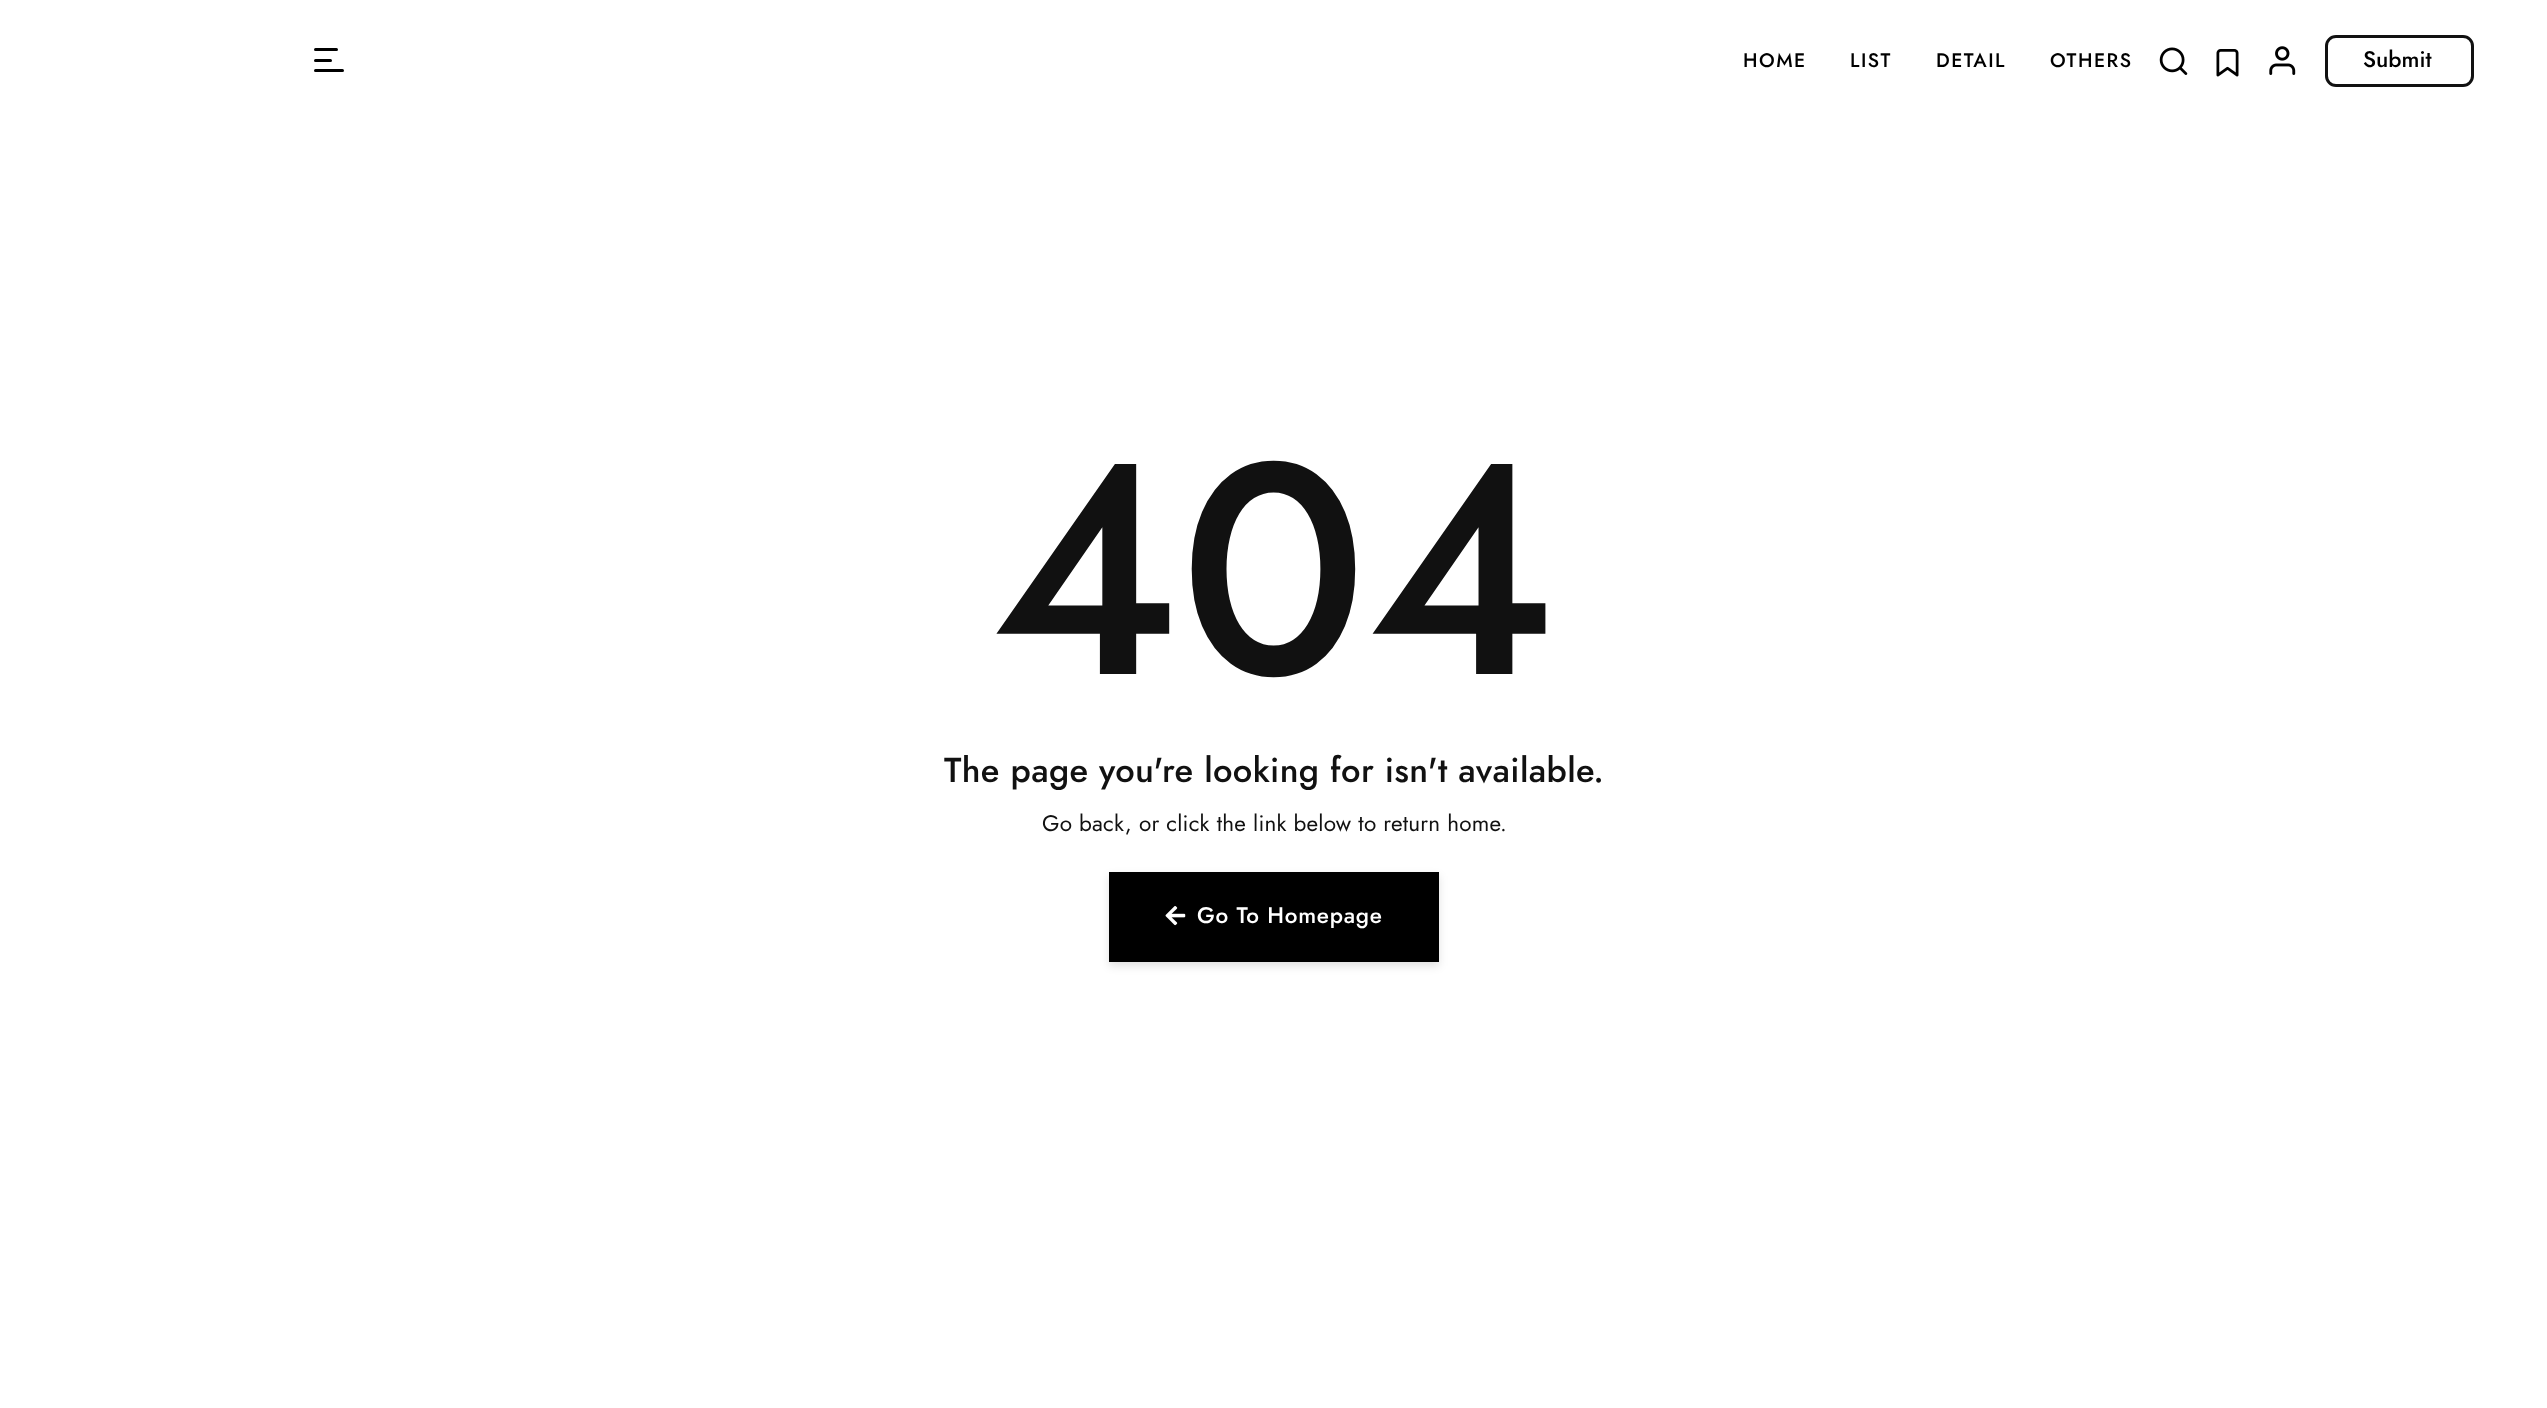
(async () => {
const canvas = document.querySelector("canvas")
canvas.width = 2547
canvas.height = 1408
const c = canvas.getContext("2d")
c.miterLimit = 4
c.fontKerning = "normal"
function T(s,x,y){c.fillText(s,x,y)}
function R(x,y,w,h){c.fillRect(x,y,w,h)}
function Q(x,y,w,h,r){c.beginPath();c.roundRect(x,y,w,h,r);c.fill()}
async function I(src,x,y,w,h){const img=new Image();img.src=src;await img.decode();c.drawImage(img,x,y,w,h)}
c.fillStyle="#fff"
R(0,0,2547,1408)
c.fillStyle="#000"
Q(314,48,24,3,1.5)
Q(314,59,18,3,1.5)
Q(314,69,30,3,1.5)
c.letterSpacing="1.5px"
c.font="500 19.5px Jost"
T("HOME",1743,67)
T("LIST",1850,67)
T("DETAIL",1936,67)
T("OTHERS",2050,67)
await I("1.png",2159,47,29,28)
await I("2.png",2216,49,23,28)
await I("3.png",2269,46,27,29)
c.beginPath()
c.roundRect(2326.5,36.5,146,49,9.5)
c.strokeStyle="#111"
c.lineWidth=3
c.stroke()
c.letterSpacing="0px"
c.font="500 22.5px Jost"
T("Submit",2363,67)
c.font="500 300px Jost"
c.fillStyle="#111"
T("404",991,674)
c.letterSpacing="0.35px"
c.font="500 34.5px Jost"
T("The page you're looking for isn't available.",944,782)
c.letterSpacing="0.2px"
c.font="22.5px Jost"
T("Go back, or click the link below to return home.",1042,831)
c.fillStyle="#0000001f"
c.filter="blur(4.5px)"
c.beginPath()
c.rect(1109,876,330,90)
c.fill()
c.filter="none"
c.fillStyle="#000"
R(1109,872,330,90)
await I("4.png",1165,906,21,20)
c.letterSpacing="0.75px"
c.font="500 22.5px Jost"
c.fillStyle="#fff"
T("Go To Homepage",1197,923)
})()
